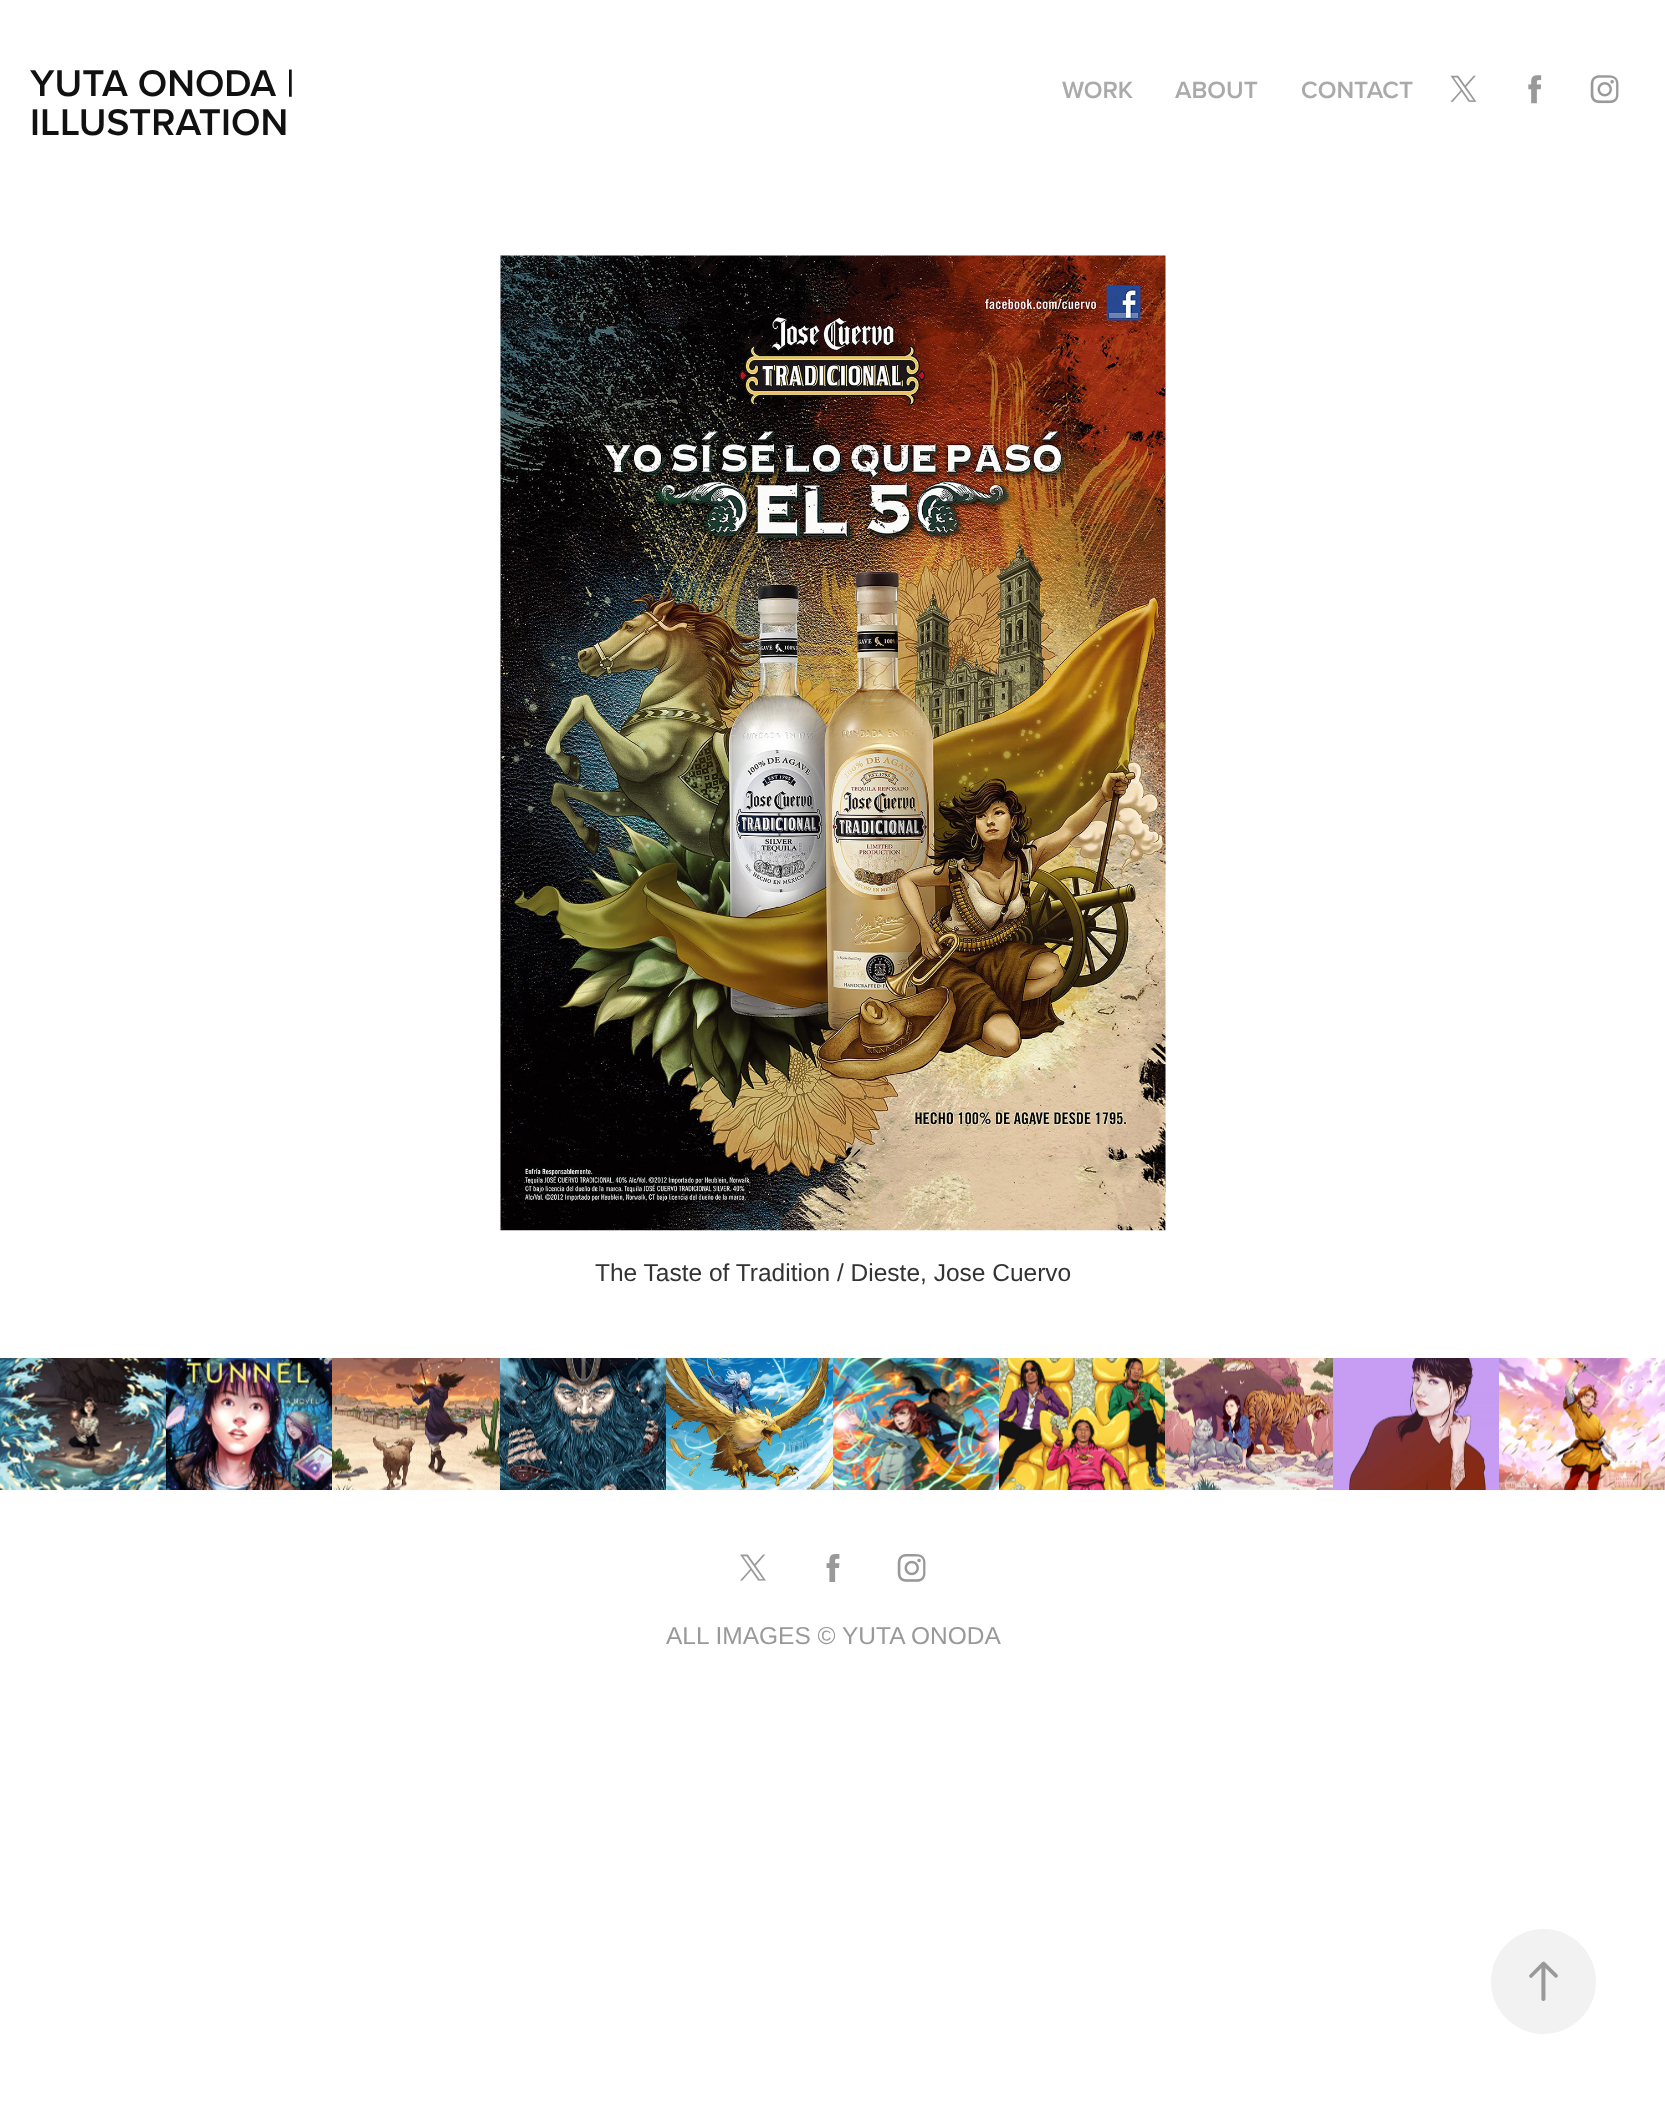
(async () => {
const canvas = document.querySelector("canvas")
canvas.width = 1665
canvas.height = 2103
const c = canvas.getContext("2d")
c.miterLimit = 4
c.fontKerning = "normal"
function T(s,x,y){c.fillText(s,x,y)}
function R(x,y,w,h){c.fillRect(x,y,w,h)}
async function I(src,x,y,w,h){const img=new Image();img.src=src;await img.decode();c.drawImage(img,x,y,w,h)}
c.fillStyle="#fff"
R(0,0,1665,2103)
c.font="600 38.5px Proxima Nova"
c.fillStyle="#111"
T("YUTA ONODA |",30,96)
T("ILLUSTRATION",30,135)
c.font="600 24.5px Proxima Nova"
c.fillStyle="#aaa"
T("WORK",1062,98)
T("ABOUT",1175,98)
T("CONTACT",1301,98)
await I("1.png",1450,75,27,27)
await I("2.png",1528,75,14,29)
await I("3.png",1590,75,29,29)
await I("4.png",500,255,666,976)
c.font="24.5px Liberation Sans"
c.fillStyle="#333"
T("The Taste of Tradition / Dieste, Jose Cuervo",595,1281)
await I("5.png",0,1358,166,132)
await I("6.png",166,1358,166,132)
await I("7.png",332,1358,168,132)
await I("8.png",500,1358,167,132)
await I("9.png",666,1358,167,132)
await I("10.png",833,1358,166,132)
await I("11.png",999,1358,166,132)
await I("12.png",1165,1358,168,132)
await I("13.png",1333,1358,166,132)
await I("14.png",1499,1358,166,132)
c.fillStyle="#f2f2f2"
c.beginPath()
c.arc(1543.5,1981.5,52.5,0,7)
c.fill()
await I("15.png",1529,1961,29,40)
await I("16.png",740,1554,26,27)
await I("17.png",826,1554,14,28)
await I("18.png",897,1554,29,28)
c.fillStyle="#999"
T("ALL IMAGES © YUTA ONODA",666,1644)
})()
